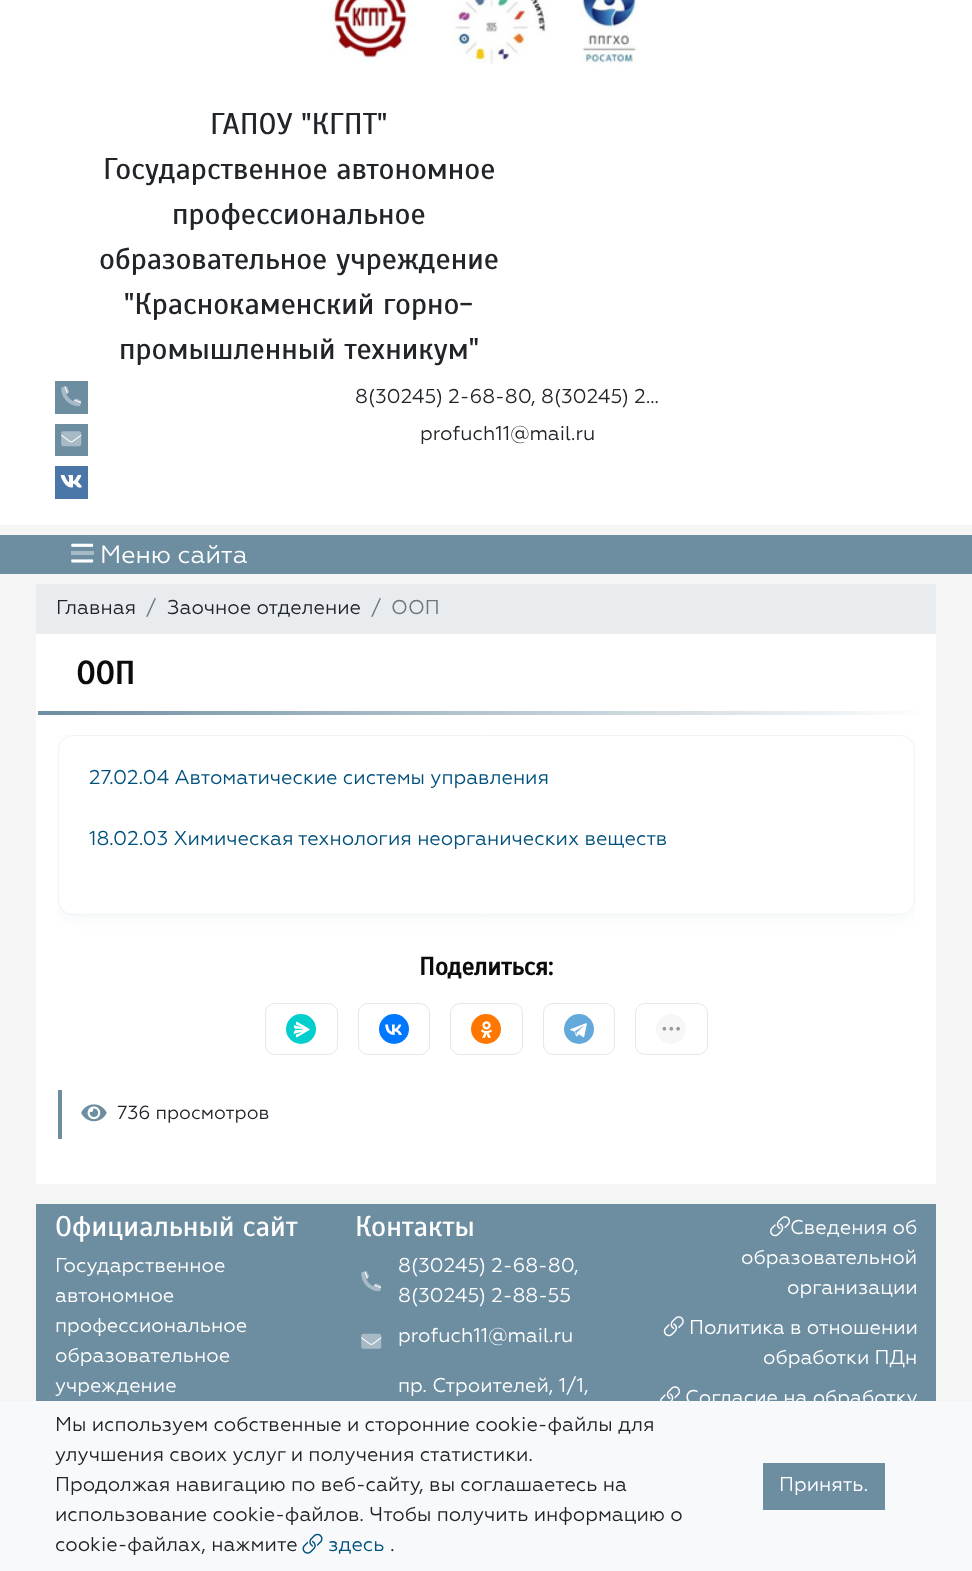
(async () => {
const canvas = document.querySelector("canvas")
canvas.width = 972
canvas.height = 1571
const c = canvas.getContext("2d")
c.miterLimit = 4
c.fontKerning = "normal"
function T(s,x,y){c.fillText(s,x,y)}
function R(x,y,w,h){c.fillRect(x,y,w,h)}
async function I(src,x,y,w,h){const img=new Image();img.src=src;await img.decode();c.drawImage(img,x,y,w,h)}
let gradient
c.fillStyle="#f5f5f5"
R(0,0,972,1571)
c.fillStyle="#fff"
R(0,0,972,525)
await I("1.png",330,0,309,65)
c.font="30px Scada"
c.fillStyle="#212529"
T("ГАПОУ \"КГПТ\"",210,134)
T("Государственное автономное",103,179)
T("профессиональное",172,224)
T("образовательное учреждение",99,269)
T("\"Краснокаменский горно-",124,314)
T("промышленный техникум\"",119,359)
c.fillStyle="#6d8da0"
R(55,381,33,33)
await I("3.png",64,386,17,18)
await I("2.png",61,386,21,21)
c.font="20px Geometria"
c.fillStyle="#212529"
T("8(30245) 2-68-80, 8(30245) 2…",355,403)
c.fillStyle="#6d8da0"
R(55,424,33,32)
await I("5.png",61,434,21,9)
await I("4.png",61,431,21,16)
c.fillStyle="#212529"
T("profuch11@mail.ru",420,440)
c.fillStyle="#4a76a8"
R(55,466,33,33)
await I("6.png",60,475,22,13)
c.fillStyle="#6d8da0"
R(0,535,972,39)
await I("7.png",71,543,23,20)
c.fillStyle="#a7bbc6"
R(71,551,23,4)
c.font="25px Geometria"
c.fillStyle="#fff"
T("Меню сайта",100,563)
R(36,634,900,550)
c.fillStyle="#e9ecef"
R(36,584,900,50)
c.font="20px Geometria"
c.fillStyle="#212529"
T("Главная",56,614)
c.fillStyle="#6c757d"
T("/",146,614)
c.fillStyle="#212529"
T("Заочное отделение",167,614)
c.fillStyle="#6c757d"
T("/",371,614)
T("ООП",391,614)
c.font="bold 32px Scada"
c.fillStyle="#0b0b0b"
T("ООП",76,684)
gradient = c.createLinearGradient(38,713,935,713)
gradient.addColorStop(0,"#6d8da0")
gradient.addColorStop(1,"#fff")
c.fillStyle = gradient
R(38,711,882,4)
c.save()
c.beginPath()
c.rect(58,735,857,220)
c.clip()
c.fillStyle="#6d8da014"
c.filter="blur(7.5px)"
c.beginPath()
c.roundRect(58,738,857,180,15)
c.fill()
c.filter="none"
c.restore()
c.fillStyle="#fff"
c.beginPath()
c.roundRect(58.5,735.5,856,179,14.5)
c.fill()
c.strokeStyle="#f0f4f5"
c.stroke()
c.font="20px Geometria"
c.fillStyle="#00517c"
T("27.02.04 Автоматические системы управления",89,784)
T("18.02.03 Химическая технология неорганических веществ",89,845)
c.font="bold 25px Scada"
c.fillStyle="#0b0b0b"
T("Поделиться:",419,975)
c.beginPath()
c.roundRect(265.5,1003.5,72,51,9.5)
c.strokeStyle="#e2e8ec"
c.stroke()
c.fillStyle="#03cece"
c.beginPath()
c.arc(301,1029,15,0,7)
c.fill()
await I("8.png",293,1021,17,17)
c.beginPath()
c.roundRect(358.5,1003.5,71,51,9.5)
c.stroke()
c.fillStyle="#07f"
c.beginPath()
c.arc(394,1029,15,0,7)
c.fill()
await I("9.png",385,1024,17,11)
c.beginPath()
c.roundRect(450.5,1003.5,72,51,9.5)
c.stroke()
c.fillStyle="#f70"
c.beginPath()
c.arc(486,1029,15,0,7)
c.fill()
await I("10.png",481,1021,12,17)
c.beginPath()
c.roundRect(543.5,1003.5,71,51,9.5)
c.stroke()
c.fillStyle="#64a9dc"
c.beginPath()
c.arc(579,1029,15,0,7)
c.fill()
await I("11.png",570,1023,17,15)
c.beginPath()
c.roundRect(635.5,1003.5,72,51,9.5)
c.stroke()
c.fillStyle="#f7f7f7"
c.beginPath()
c.arc(671,1029,15,0,7)
c.fill()
await I("12.png",662,1026,18,5)
c.fillStyle="#6d8da0"
R(58,1090,4,49)
await I("13.png",81,1104,26,18)
c.font="19px Geometria"
c.fillStyle="#212529"
T("736 просмотров",117,1119)
c.fillStyle="#6d8da0"
R(36,1204,900,197)
c.font="28.5px Scada"
c.fillStyle="#fff"
T("Официальный сайт",55,1236)
c.font="20px Geometria"
T("Государственное",55,1272)
T("автономное",55,1302)
T("профессиональное",55,1332)
T("образовательное",55,1362)
T("учреждение",55,1392)
c.font="28.5px Scada"
T("Контакты",355,1236)
await I("3.png",364,1271,17,18)
await I("2.png",361,1271,21,21)
c.font="20px Geometria"
T("8(30245) 2-68-80,",398,1272)
T("8(30245) 2-88-55",398,1302)
await I("15.png",361,1336,21,9)
await I("14.png",361,1333,21,16)
T("profuch11@mail.ru",398,1342)
T("пр. Строителей, 1/1,",398,1392)
await I("16.png",770,1216,20,21)
T("Сведения об",790,1234)
T("образовательной",741,1264)
T("организации",787,1294)
await I("17.png",663,1316,21,21)
T("Политика в отношении",689,1334)
T("обработки ПДн",763,1364)
await I("18.png",660,1386,20,15)
T("Согласие на обработку",685,1404)
c.fillStyle="#f8f9fa"
R(0,1401,972,170)
c.fillStyle="#212529"
T("Мы используем собственные и сторонние cookie-файлы для",55,1431)
T("улучшения своих услуг и получения статистики.",55,1461)
T("Продолжая навигацию по веб-сайту, вы соглашаетесь на",55,1491)
T("использование cookie-файлов. Чтобы получить информацию о",55,1521)
T("cookie-файлах, нажмите",55,1551)
await I("19.png",302,1533,21,21)
c.fillStyle="#00517c"
T("здесь",328,1551)
c.fillStyle="#212529"
T(".",390,1551)
c.fillStyle="#6d8da0"
R(763,1463,122,47)
c.fillStyle="#fff"
T("Принять.",779,1491)
})()
